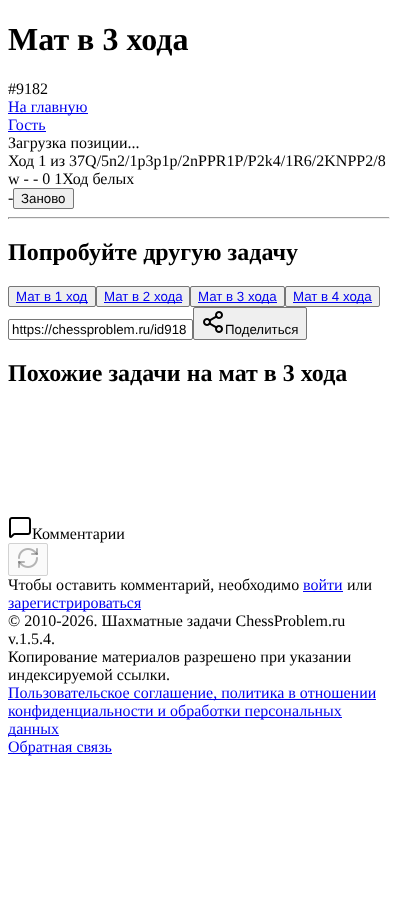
(async () => {
const canvas = document.querySelector("canvas")
canvas.width = 398
canvas.height = 900
const c = canvas.getContext("2d")
c.miterLimit = 4
c.fontKerning = "normal"
function T(s,x,y){c.fillText(s,x,y)}
function R(x,y,w,h){c.fillRect(x,y,w,h)}
async function I(src,x,y,w,h){const img=new Image();img.src=src;await img.decode();c.drawImage(img,x,y,w,h)}
c.fillStyle="#fff"
R(0,0,398,900)
c.font="bold 32px Liberation Serif"
c.fillStyle="#000"
T("Мат в 3 хода",8,50)
c.font="16px Liberation Serif"
T("#9182",8,94)
c.fillStyle="#00e"
R(8,113,80,1)
T("На главную",8,112)
T("Гость",8,130)
R(8,131,38,1)
c.fillStyle="#000"
T("Загрузка позиции...",8,148)
T("Ход 1 из 37Q/5n2/1p3p1p/2nPPR1P/P2k4/1R6/2KNPP2/8",8,166)
T("w - - 0 1Ход белых",8,184)
T("-",8,203)
c.fillStyle="#efefef"
c.beginPath()
c.roundRect(13.5,188.5,60,20,1.5)
c.fill()
c.strokeStyle="#767676"
c.stroke()
c.font="13.3px Liberation Sans"
c.fillStyle="#000"
T("Заново",21,203)
c.fillStyle="#9f9f9f"
R(8,217,382,1)
c.fillStyle="#eee"
R(389,217,1,2)
R(8,218,382,1)
c.fillStyle="#9f9f9f"
R(8,217,1,2)
c.font="bold 24px Liberation Serif"
c.fillStyle="#000"
T("Попробуйте другую задачу",8,260)
c.fillStyle="#efefef"
c.beginPath()
c.roundRect(8.5,286.5,87,20,1.5)
c.fill()
c.stroke()
c.fillStyle="#00e"
R(16,302,72,1)
c.font="13.3px Liberation Sans"
T("Мат в 1 ход",16,301)
c.fillStyle="#efefef"
c.beginPath()
c.roundRect(96.5,286.5,93,20,1.5)
c.fill()
c.stroke()
c.fillStyle="#00e"
R(104,302,78,1)
T("Мат в 2 хода",104,301)
c.fillStyle="#efefef"
c.beginPath()
c.roundRect(190.5,286.5,94,20,1.5)
c.fill()
c.stroke()
c.fillStyle="#00e"
R(198,302,79,1)
T("Мат в 3 хода",198,301)
c.fillStyle="#efefef"
c.beginPath()
c.roundRect(285.5,286.5,94,20,1.5)
c.fill()
c.stroke()
c.fillStyle="#00e"
R(293,302,79,1)
T("Мат в 4 хода",293,301)
c.beginPath()
c.roundRect(8.5,319.5,184,20,1.5)
c.stroke()
c.fillStyle="#000"
T("https://chessproblem.ru/id918",12,334)
c.fillStyle="#efefef"
c.beginPath()
c.roundRect(193.5,307.5,113,32,1.5)
c.fill()
c.stroke()
await I("1.png",203,311,20,22)
c.fillStyle="#000"
T("Поделиться",225,334)
c.font="bold 24px Liberation Serif"
T("Похожие задачи на мат в 3 хода",8,381)
await I("2.png",9,517,22,21)
c.font="16px Liberation Serif"
T("Комментарии",32,539)
c.fillStyle="#fafafa"
c.beginPath()
c.roundRect(8.5,543.5,39,32,1.5)
c.fill()
c.strokeStyle="#d2d2d2"
c.stroke()
await I("3.png",18,548,20,20)
c.fillStyle="#000"
T("Чтобы оставить комментарий, необходимо",8,590)
c.fillStyle="#00e"
T("войти",303,590)
R(303,591,40,1)
c.fillStyle="#000"
T("или",347,590)
c.fillStyle="#00e"
R(8,609,133,1)
T("зарегистрироваться",8,608)
c.fillStyle="#000"
T("© 2010-2026. Шахматные задачи ChessProblem.ru",8,626)
T("v.1.5.4.",8,644)
T("Копирование материалов разрешено при указании",8,662)
T("индексируемой ссылки.",8,680)
c.fillStyle="#00e"
R(8,699,368,1)
T("Пользовательское соглашение, политика в отношении",8,698)
R(8,717,334,1)
T("конфиденциальности и обработки персональных",8,716)
R(8,735,51,1)
T("данных",8,734)
R(8,753,104,1)
T("Обратная связь",8,752)
})()
